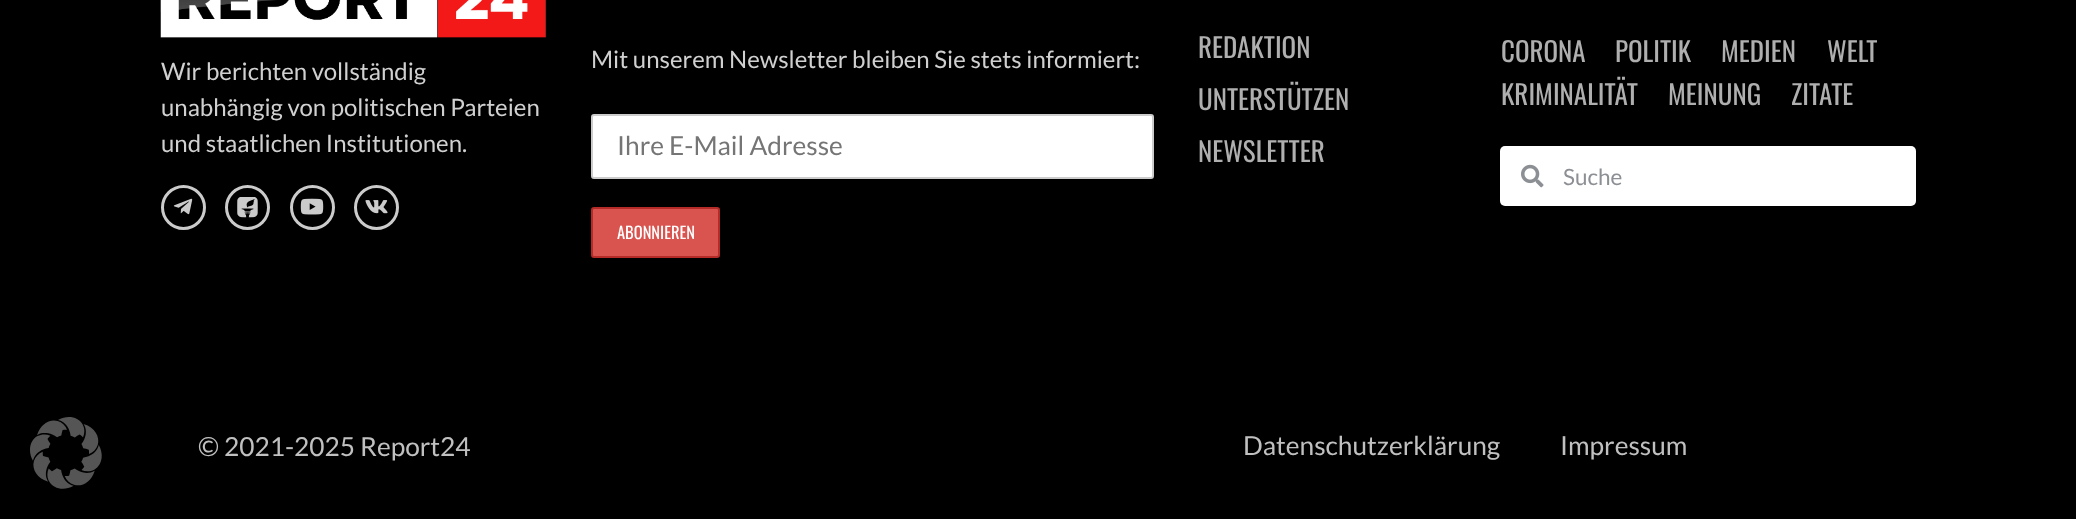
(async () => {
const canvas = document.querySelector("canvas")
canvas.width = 2076
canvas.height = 519
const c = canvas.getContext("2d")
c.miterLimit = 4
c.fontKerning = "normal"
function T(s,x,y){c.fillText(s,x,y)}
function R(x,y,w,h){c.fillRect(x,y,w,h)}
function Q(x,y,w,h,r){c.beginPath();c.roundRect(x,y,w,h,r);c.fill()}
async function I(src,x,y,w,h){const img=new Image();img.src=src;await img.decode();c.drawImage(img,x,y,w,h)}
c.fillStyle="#000"
R(0,0,2076,519)
await I("1.png",30,417,72,72)
await I("2.png",160,0,386,38)
c.font="24px Lato"
c.fillStyle="#d0d0d0"
T("Wir berichten vollständig",161,80)
T("unabhängig von politischen Parteien",161,116)
T("und staatlichen Institutionen.",161,152)
c.beginPath()
c.arc(183.5,207.5,21,0,7)
c.strokeStyle="#cbcbcb"
c.lineWidth=3
c.stroke()
await I("3.png",173,198,20,17)
c.beginPath()
c.arc(247.5,207.5,21,0,7)
c.stroke()
await I("4.png",237,197,21,21)
c.beginPath()
c.arc(312.5,207.5,21,0,7)
c.stroke()
await I("5.png",300,198,24,17)
c.beginPath()
c.arc(376.5,207.5,21,0,7)
c.stroke()
await I("6.png",365,200,23,14)
T("Mit unserem Newsletter bleiben Sie stets informiert:",591,68)
c.fillStyle="#fff"
c.beginPath()
c.roundRect(592,115,561,63,2)
c.fill()
c.strokeStyle="#ccc"
c.lineWidth=2
c.stroke()
c.font="26.25px Lato"
c.fillStyle="#757575"
T("Ihre E-Mail Adresse",617,155)
c.fillStyle="#d9534f"
c.beginPath()
c.roundRect(592,208,127,49,2)
c.fill()
c.strokeStyle="#b52b27"
c.stroke()
c.font="16.5px Oswald"
c.fillStyle="#fff"
T("ABONNIEREN",617,239)
c.font="27px Oswald"
c.fillStyle="#afafaf"
T("REDAKTION",1198,58)
T("UNTERSTÜTZEN",1198,110)
T("NEWSLETTER",1198,162)
T("CORONA",1501,62)
T("POLITIK",1615,62)
T("MEDIEN",1721,62)
T("WELT",1827,62)
T("KRIMINALITÄT",1501,105)
T("MEINUNG",1668,105)
T("ZITATE",1791,105)
c.fillStyle="#fff"
Q(1500,146,416,60,5)
await I("7.png",1521,164,23,24)
c.font="22.5px Lato"
c.fillStyle="#8c8f93"
T("Suche",1563,185)
c.font="26.25px Lato"
c.fillStyle="#c0c0c0"
T("© 2021-2025 Report24",198,456)
T("Datenschutzerklärung",1243,455)
T("Impressum",1560,455)
})()
